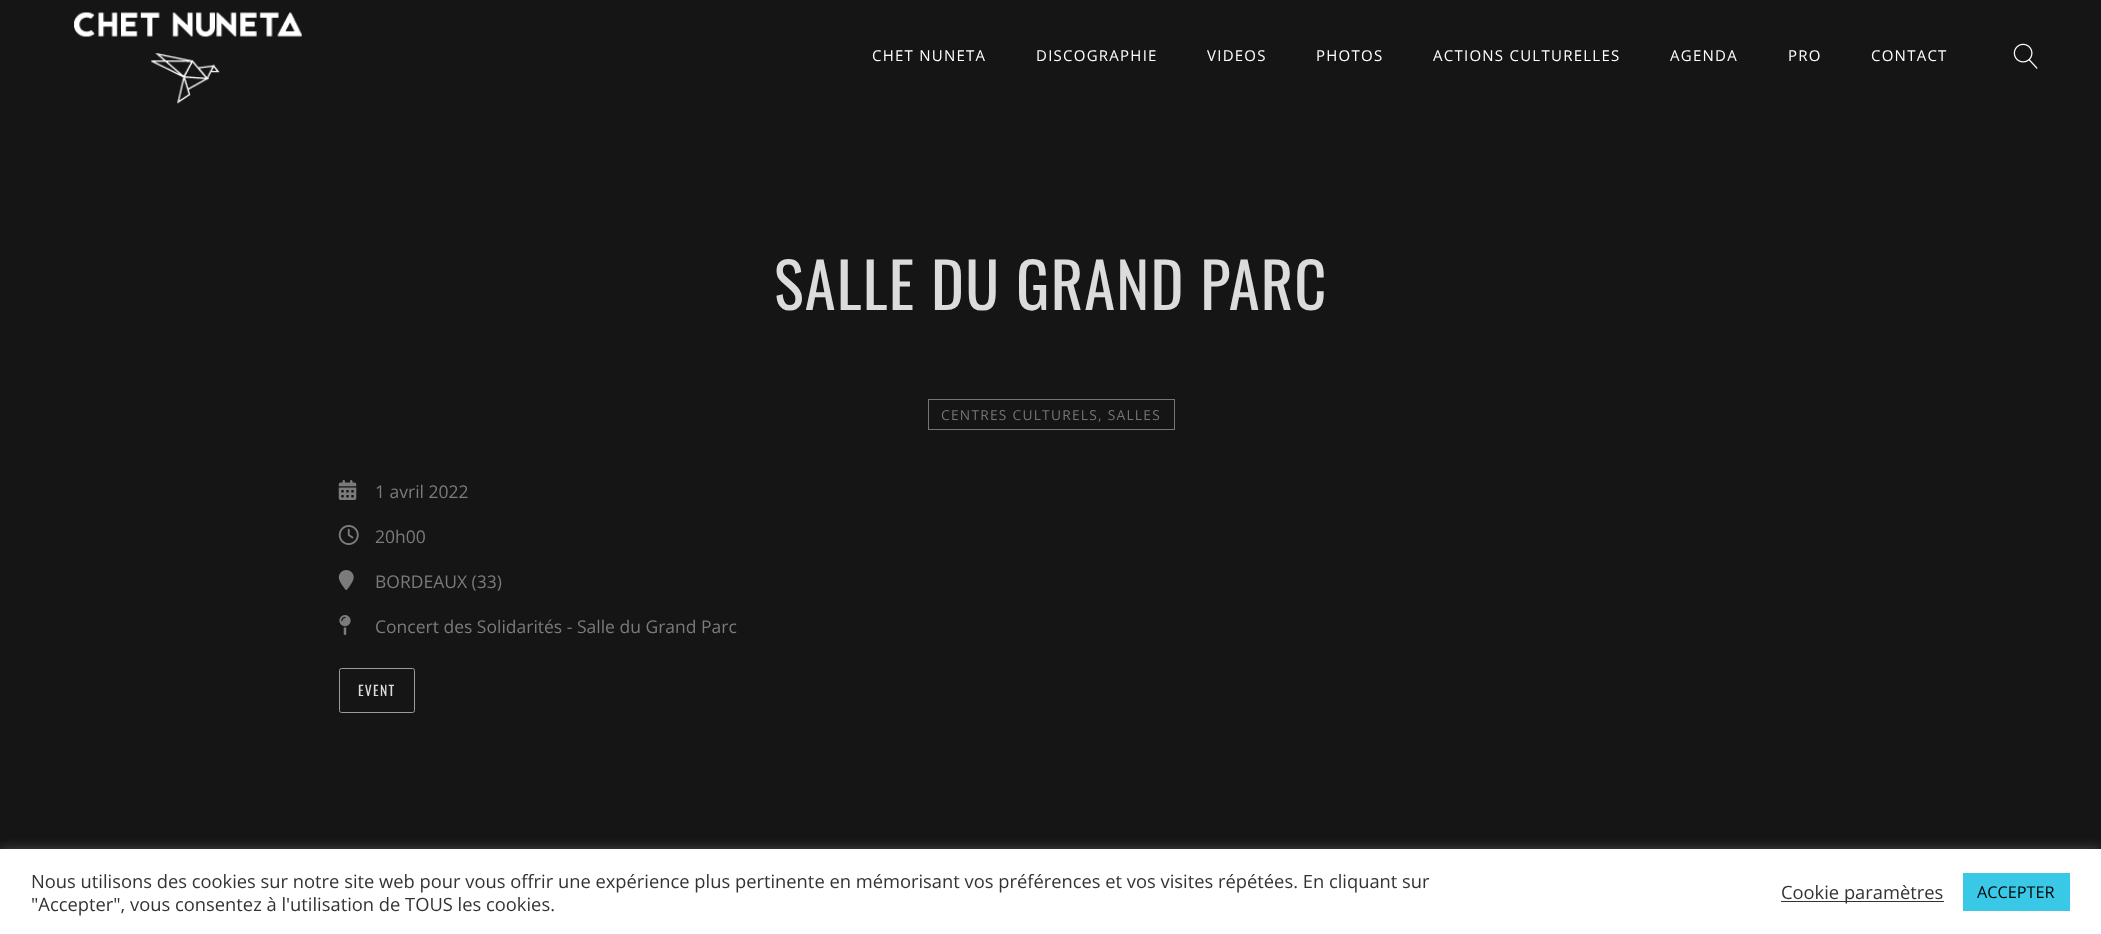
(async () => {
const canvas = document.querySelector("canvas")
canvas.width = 2101
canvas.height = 934
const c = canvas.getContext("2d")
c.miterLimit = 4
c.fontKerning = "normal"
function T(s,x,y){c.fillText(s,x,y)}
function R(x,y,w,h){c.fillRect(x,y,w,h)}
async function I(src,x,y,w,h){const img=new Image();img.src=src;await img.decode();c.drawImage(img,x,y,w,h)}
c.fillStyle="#151515"
R(0,0,2101,934)
await I("1.png",74,12,228,92)
c.letterSpacing="1.25px"
c.font="15px Open Sans"
c.fillStyle="#fff"
T("CHET NUNETA",872,61)
T("DISCOGRAPHIE",1036,61)
T("VIDEOS",1207,61)
T("PHOTOS",1316,61)
T("ACTIONS CULTURELLES",1433,61)
T("AGENDA",1670,61)
T("PRO",1788,61)
T("CONTACT",1871,61)
await I("2.png",2013,43,25,26)
c.font="62.5px Oswald"
c.fillStyle="#dcdcdc"
T("SALLE DU GRAND PARC",774,310)
c.strokeStyle="#757575"
c.strokeRect(928.5,399.5,246,30)
c.font="13.75px Open Sans"
c.fillStyle="#757575"
T("CENTRES CULTURELS, SALLES",941,420)
await I("3.png",338,480,19,20)
c.letterSpacing="0px"
c.font="17.5px Open Sans"
c.fillStyle="#7b7b7b"
T("1 avril 2022",375,498)
await I("4.png",338,525,21,20)
T("20h00",375,543)
await I("5.png",338,570,16,20)
T("BORDEAUX (33)",375,588)
await I("6.png",339,615,12,20)
T("Concert des Solidarités - Salle du Grand Parc",375,633)
c.beginPath()
c.roundRect(339.5,668.5,75,44,2)
c.strokeStyle="#9c9c9c"
c.stroke()
c.letterSpacing="1.25px"
c.font="13.75px Oswald"
c.fillStyle="#dcdcdc"
T("EVENT",358,696)
c.fillStyle="#acabab4d"
c.filter="blur(6px)"
c.beginPath()
c.rect(0,848,2101,86)
c.fill()
c.filter="none"
c.fillStyle="#fff"
R(0,849,2101,85)
c.letterSpacing="0px"
c.font="18.33px Open Sans"
c.fillStyle="#333"
T("Nous utilisons des cookies sur notre site web pour vous offrir une expérience plus pertinente en mémorisant vos préférences et vos visites répétées. En cliquant sur",31,888)
T("\"Accepter\", vous consentez à l'utilisation de TOUS les cookies.",31,911)
R(1781,901,163,1)
T("Cookie paramètres",1781,899)
c.fillStyle="#39c8e5"
R(1963,873,107,38)
c.font="16.25px Open Sans"
c.fillStyle="#000"
T("ACCEPTER",1977,898)
})()
